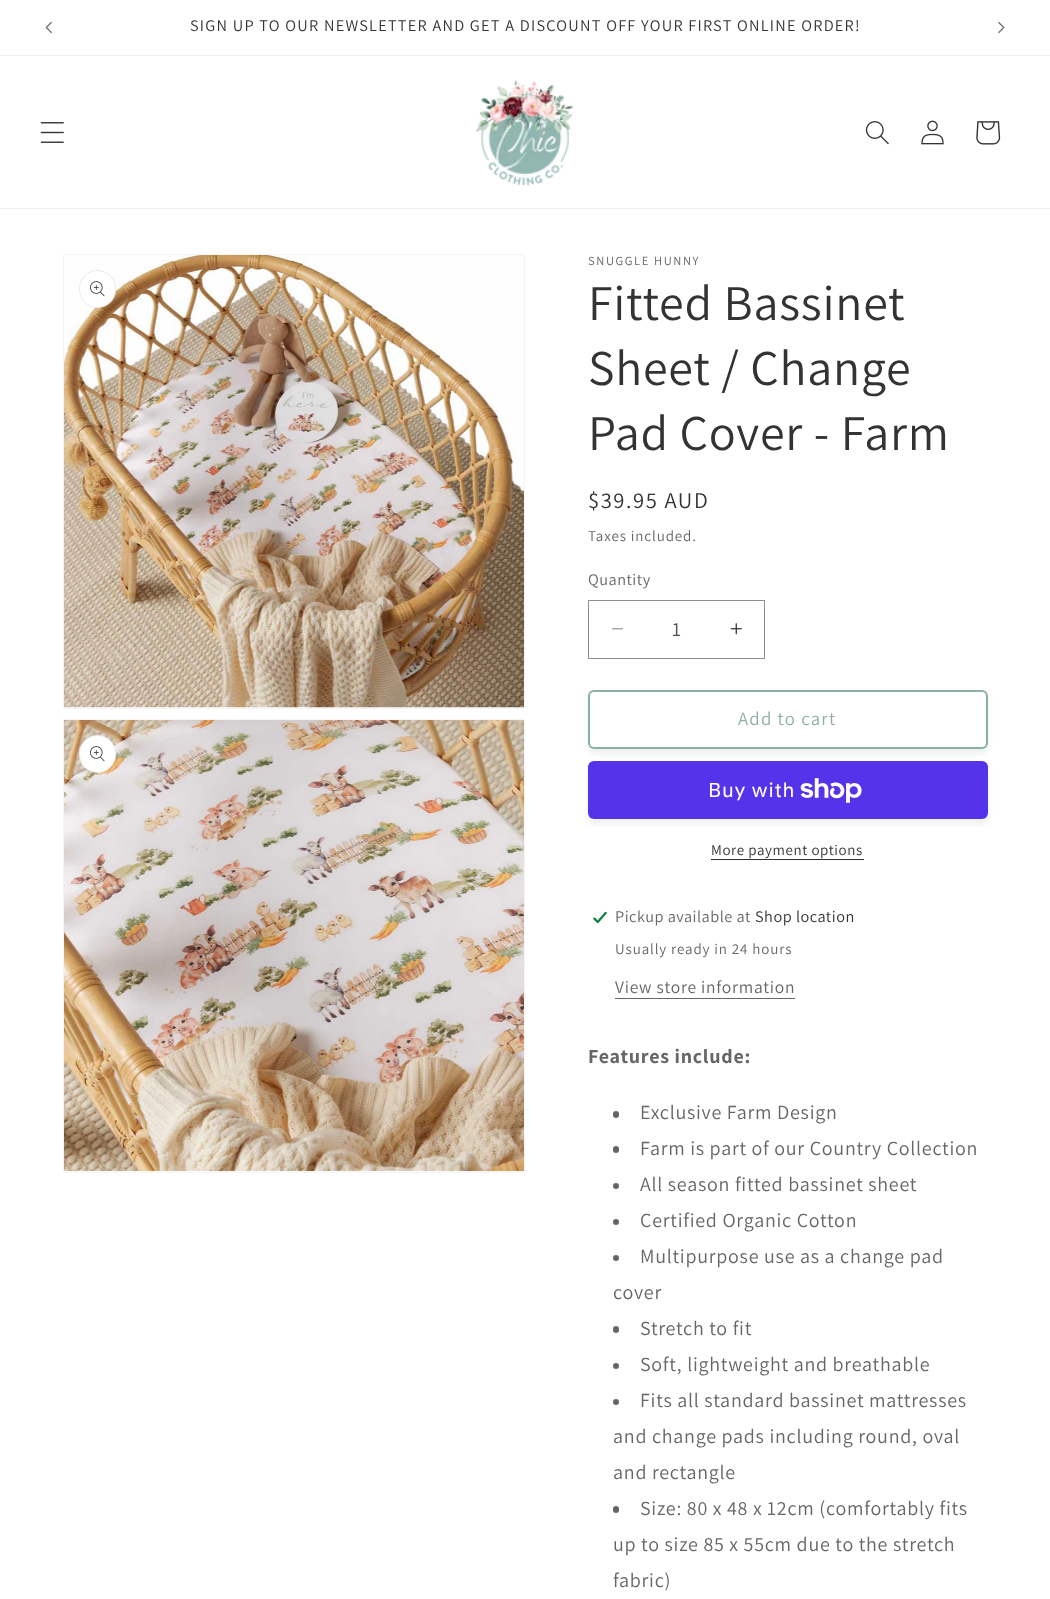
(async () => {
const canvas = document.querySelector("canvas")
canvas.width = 1050
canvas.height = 1599
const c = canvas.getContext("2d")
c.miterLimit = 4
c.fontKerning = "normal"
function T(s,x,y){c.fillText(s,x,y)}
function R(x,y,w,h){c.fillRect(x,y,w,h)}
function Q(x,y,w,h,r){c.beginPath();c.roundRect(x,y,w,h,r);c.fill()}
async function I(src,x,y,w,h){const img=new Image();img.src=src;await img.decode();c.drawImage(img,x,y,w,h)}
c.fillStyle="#fff"
R(0,0,1050,1599)
c.fillStyle="#efefef"
R(0,55,1050,1)
await I("1.png",45,21,7,13)
c.letterSpacing="1.25px"
c.font="16.25px Assistant"
c.fillStyle="#333"
T("SIGN UP TO OUR NEWSLETTER AND GET A DISCOUNT OFF YOUR FIRST ONLINE ORDER!",190,31)
await I("2.png",998,21,7,13)
c.fillStyle="#efefef"
R(0,208,1050,1)
await I("3.png",40,122,24,21)
await I("4.png",476,80,98,106)
await I("5.png",865,121,24,24)
await I("6.png",921,120,23,25)
await I("7.png",976,121,25,24)
c.strokeStyle="#f5f5f5"
c.strokeRect(63.5,254.5,461,454)
await I("8.png",64,255,460,453)
c.fillStyle="#fff"
Q(79,270,37,38,18.5)
c.beginPath()
c.roundRect(79.5,270.5,36,37,18)
c.strokeStyle="#3333331a"
c.stroke()
await I("9.png",90,281,15,16)
c.strokeStyle="#f5f5f5"
c.strokeRect(63.5,719.5,461,453)
await I("10.png",64,720,460,452)
Q(79,735,37,38,18.5)
c.beginPath()
c.roundRect(79.5,735.5,36,37,18)
c.strokeStyle="#3333331a"
c.stroke()
await I("9.png",90,746,15,16)
c.letterSpacing="1.6px"
c.font="12.5px Assistant"
c.fillStyle="#666"
T("SNUGGLE HUNNY",588,265)
c.letterSpacing="0.75px"
c.font="50px Assistant"
c.fillStyle="#333"
T("Fitted Bassinet",588,320)
T("Sheet / Change",588,385)
T("Pad Cover - Farm",588,450)
c.letterSpacing="1.6px"
c.font="22.5px Assistant"
T("$39.95 AUD",588,508)
c.letterSpacing="0.9px"
c.font="15px Assistant"
c.fillStyle="#666"
T("Taxes included.",588,541)
c.letterSpacing="0.5px"
c.font="16.25px Assistant"
T("Quantity",588,585)
await I("11.png",612,628,11,2)
await I("12.png",730,623,12,12)
c.strokeStyle="#8f8f8f"
c.strokeRect(588.5,600.5,176,58)
c.letterSpacing="0px"
c.font="20px Assistant"
c.fillStyle="#525252"
T("1",672,636)
c.fillStyle="#b9c8c040"
c.filter="blur(3px)"
c.beginPath()
c.roundRect(588,695,400,59,6)
c.fill()
c.filter="none"
c.fillStyle="#fff"
Q(588,690,400,59,6)
c.beginPath()
c.roundRect(588.5,690.5,399,58,5.5)
c.strokeStyle="#fff"
c.stroke()
c.beginPath()
c.roundRect(589,691,398,57,5)
c.strokeStyle="#8cb0a4"
c.lineWidth=2
c.stroke()
c.letterSpacing="1.25px"
c.font="18.75px Assistant"
c.fillStyle="#8cb0a4"
T("Add to cart",738,725)
c.fillStyle="#b9c8c040"
c.filter="blur(3px)"
c.beginPath()
c.roundRect(588,766,400,58,6)
c.fill()
c.filter="none"
c.fillStyle="#5433eb"
Q(588,761,400,58,6)
c.letterSpacing="0.75px"
c.font="20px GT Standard"
c.fillStyle="#fff"
T("Buy with",708,797)
await I("13.png",800,778,62,25)
c.letterSpacing="0.6px"
c.font="15px Assistant"
c.fillStyle="#333"
T("More payment options",711,855)
R(711,859,153,1)
await I("14.png",592,911,16,13)
c.letterSpacing="0.5px"
c.font="16.25px Assistant"
c.fillStyle="#666"
T("Pickup available at",615,922)
c.fillStyle="#333"
T("Shop location",755,922)
c.letterSpacing="0.9px"
c.font="15px Assistant"
c.fillStyle="#666"
T("Usually ready in 24 hours",615,954)
c.letterSpacing="0.75px"
c.font="17.5px Assistant"
T("View store information",615,993)
R(615,998,180,1)
c.font="bold 20px Assistant"
T("Features include:",588,1063)
Q(613,1111,6,7,3)
c.font="20px Assistant"
T("Exclusive Farm Design",640,1119)
Q(613,1146,6,7,3)
T("Farm is part of our Country Collection",640,1155)
c.beginPath()
c.arc(616,1186,3,0,7)
c.fill()
T("All season fitted bassinet sheet",640,1191)
c.beginPath()
c.arc(616,1222,3,0,7)
c.fill()
T("Certified Organic Cotton",640,1227)
c.beginPath()
c.arc(616,1258,3,0,7)
c.fill()
T("Multipurpose use as a change pad",640,1263)
T("cover",613,1299)
Q(613,1326,6,7,3)
T("Stretch to fit",640,1335)
c.beginPath()
c.arc(616,1366,3,0,7)
c.fill()
T("Soft, lightweight and breathable",640,1371)
c.beginPath()
c.arc(616,1402,3,0,7)
c.fill()
T("Fits all standard bassinet mattresses",640,1407)
T("and change pads including round, oval",613,1443)
T("and rectangle",613,1479)
Q(613,1506,6,7,3)
T("Size: 80 x 48 x 12cm (comfortably fits",640,1515)
T("up to size 85 x 55cm due to the stretch",613,1551)
T("fabric)",613,1587)
})()
